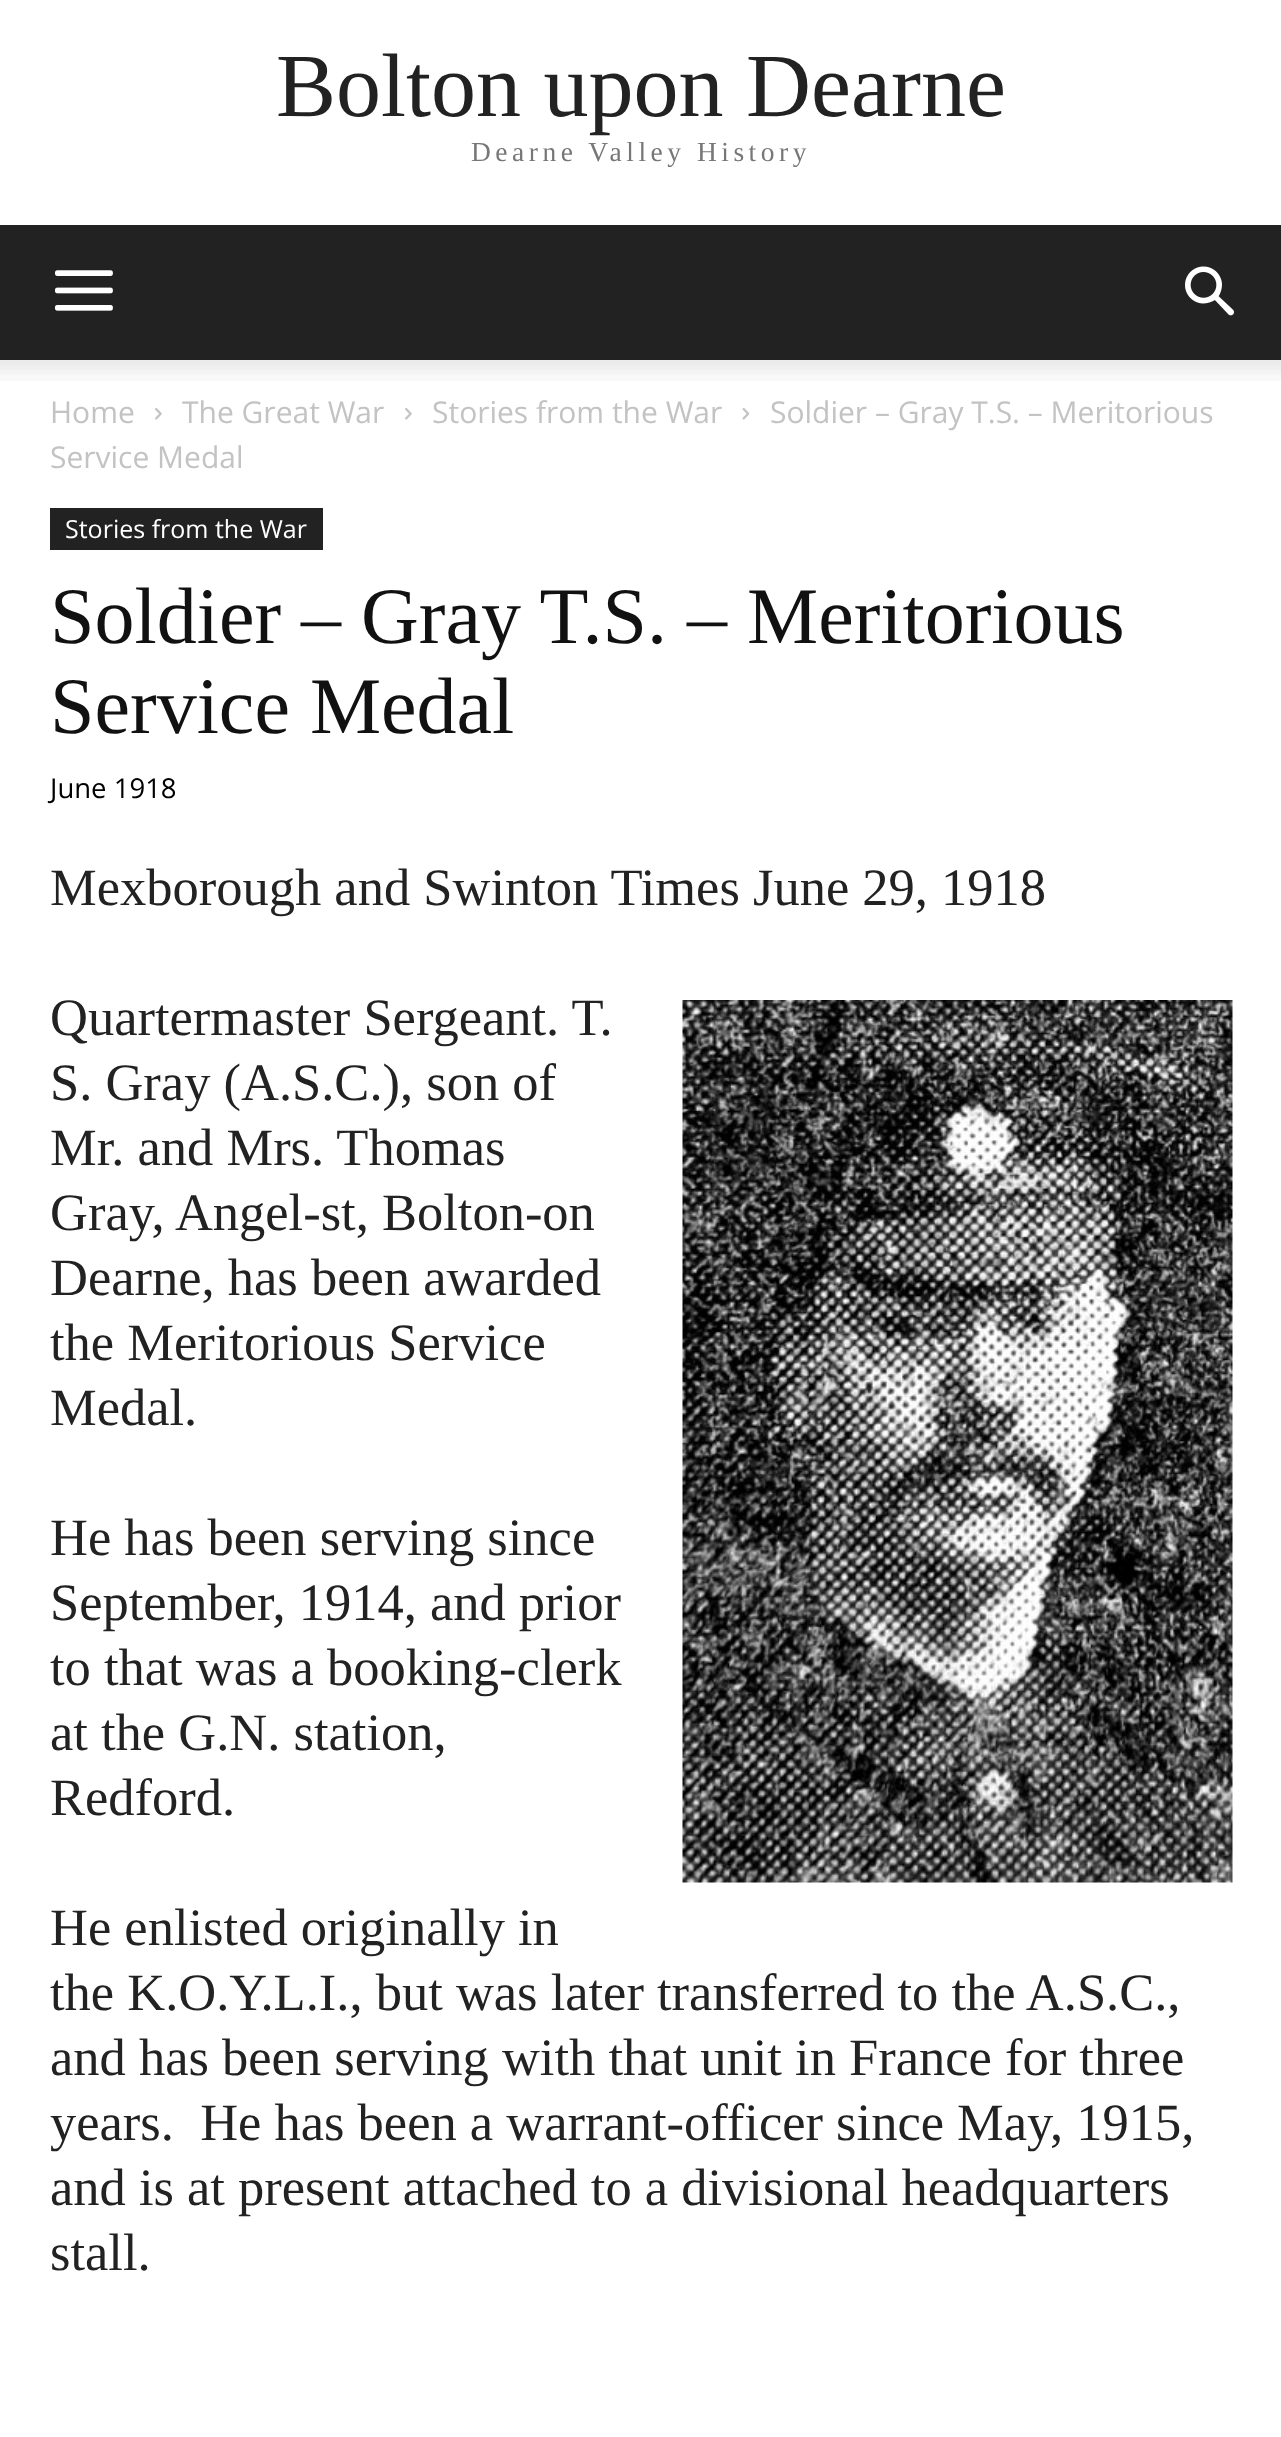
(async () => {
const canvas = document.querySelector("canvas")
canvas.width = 1281
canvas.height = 2437
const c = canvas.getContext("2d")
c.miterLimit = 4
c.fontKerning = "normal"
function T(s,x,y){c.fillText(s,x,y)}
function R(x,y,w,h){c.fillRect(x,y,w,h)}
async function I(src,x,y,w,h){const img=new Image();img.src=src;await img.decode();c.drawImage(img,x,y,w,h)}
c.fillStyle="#fff"
R(0,0,1281,2437)
c.font="90px Liberation Serif"
c.fillStyle="#222"
T("Bolton upon Dearne",276,116)
c.letterSpacing="4.5px"
c.font="27.5px Liberation Serif"
c.fillStyle="#777"
T("Dearne Valley History",471,161)
c.fillStyle="#222"
R(0,225,1281,135)
await I("1.png",55,270,58,41)
await I("2.png",1185,266,49,50)
await I("3.png",0,360,1281,21)
c.letterSpacing="0px"
c.font="30px Open Sans"
c.fillStyle="#c3c3c3"
T("Home",50,423)
await I("4.png",155,408,7,12)
T("The Great War",182,423)
await I("4.png",405,408,7,12)
T("Stories from the War",432,423)
await I("5.png",742,408,8,12)
T("Soldier – Gray T.S. – Meritorious",770,423)
T("Service Medal",50,468)
c.fillStyle="#222"
R(50,508,273,42)
c.font="25px Open Sans"
c.fillStyle="#fff"
T("Stories from the War",65,538)
c.font="80px Liberation Serif"
c.fillStyle="#111"
T("Soldier – Gray T.S. – Meritorious",50,643)
T("Service Medal",50,733)
c.font="27.5px Open Sans"
c.fillStyle="#000"
T("June 1918",50,798)
c.font="52.5px Liberation Serif"
c.fillStyle="#222"
T("Mexborough and Swinton Times June 29, 1918",50,905)
T("Quartermaster Sergeant. T.",50,1035)
T("S. Gray (A.S.C.), son of",50,1100)
T("Mr. and Mrs. Thomas",50,1165)
T("Gray, Angel-st, Bolton-on",50,1230)
T("Dearne, has been awarded",50,1295)
T("the Meritorious Service",50,1360)
T("Medal.",50,1425)
await I("6.png",682,1000,551,883)
T("He has been serving since",50,1555)
T("September, 1914, and prior",50,1620)
T("to that was a booking-clerk",50,1685)
T("at the G.N. station,",50,1750)
T("Redford.",50,1815)
T("He enlisted originally in",50,1945)
T("the K.O.Y.L.I., but was later transferred to the A.S.C.,",50,2010)
T("and has been serving with that unit in France for three",50,2075)
T("years.  He has been a warrant-officer since May, 1915,",50,2140)
T("and is at present attached to a divisional headquarters",50,2205)
T("stall.",50,2270)
})()
